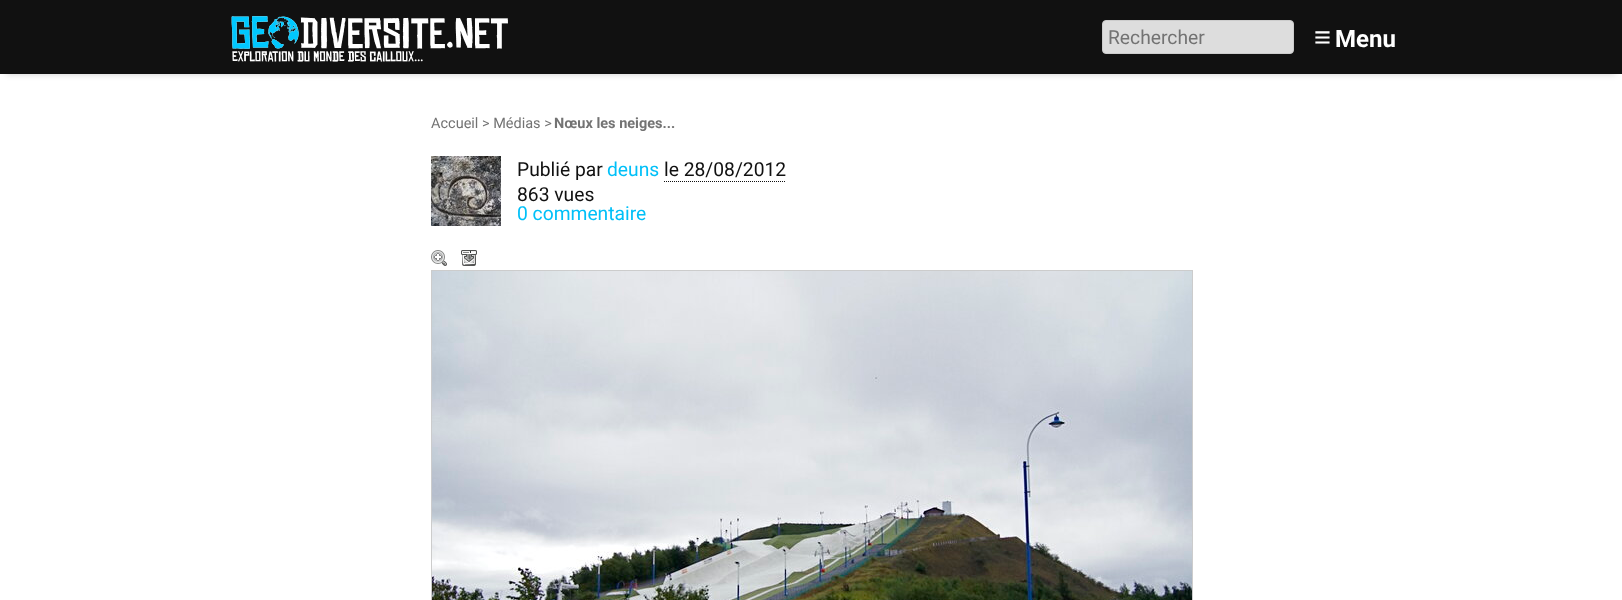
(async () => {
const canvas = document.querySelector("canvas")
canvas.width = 1622
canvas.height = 600
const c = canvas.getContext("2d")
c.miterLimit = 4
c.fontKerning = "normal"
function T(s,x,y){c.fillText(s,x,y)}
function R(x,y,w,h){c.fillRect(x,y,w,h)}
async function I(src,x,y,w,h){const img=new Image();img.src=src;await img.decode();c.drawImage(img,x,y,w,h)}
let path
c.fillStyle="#fff"
R(0,0,1622,600)
c.fillStyle="#00000033"
c.filter="blur(3px)"
c.beginPath()
c.rect(6,12,1610,62)
c.fill()
c.filter="none"
c.fillStyle="#111"
R(0,0,1622,74)
await I("1.png",231,16,277,46)
c.fillStyle="#ddd"
c.beginPath()
c.roundRect(1102.5,20.5,191,33,3.5)
c.fill()
c.strokeStyle="#ccc"
c.stroke()
c.font="19.25px Roboto"
c.fillStyle="#737373"
T("Rechercher",1108,44)
c.font="bold 29px Liberation Sans"
c.fillStyle="#fff"
T("≡",1314,47)
c.font="bold 24px Roboto"
T("Menu",1335,47)
c.font="14.5px Roboto"
c.fillStyle="#737373"
T("Accueil > Médias >",431,128)
c.font="bold 14.5px Roboto"
T("Nœux les neiges...",554,128)
await I("2.png",431,156,70,70)
c.font="19.25px Roboto"
c.fillStyle="#111"
T("Publié par",517,176)
c.fillStyle="#00c0f8"
T("deuns",607,176)
c.fillStyle="#111"
T("le 28/08/2012",664,176)
path = new Path2D("M664 181.5h122")
c.strokeStyle="#111"
c.setLineDash([1,1])
c.stroke(path)
T("863 vues",517,201)
c.fillStyle="#00c0f8"
T("0 commentaire",517,220)
await I("3.png",431,250,16,16)
await I("4.png",461,250,16,16)
await I("5.png",432,271,760,329)
c.strokeStyle="#ccc"
c.setLineDash([])
c.strokeRect(431.5,270.5,761,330)
})()
